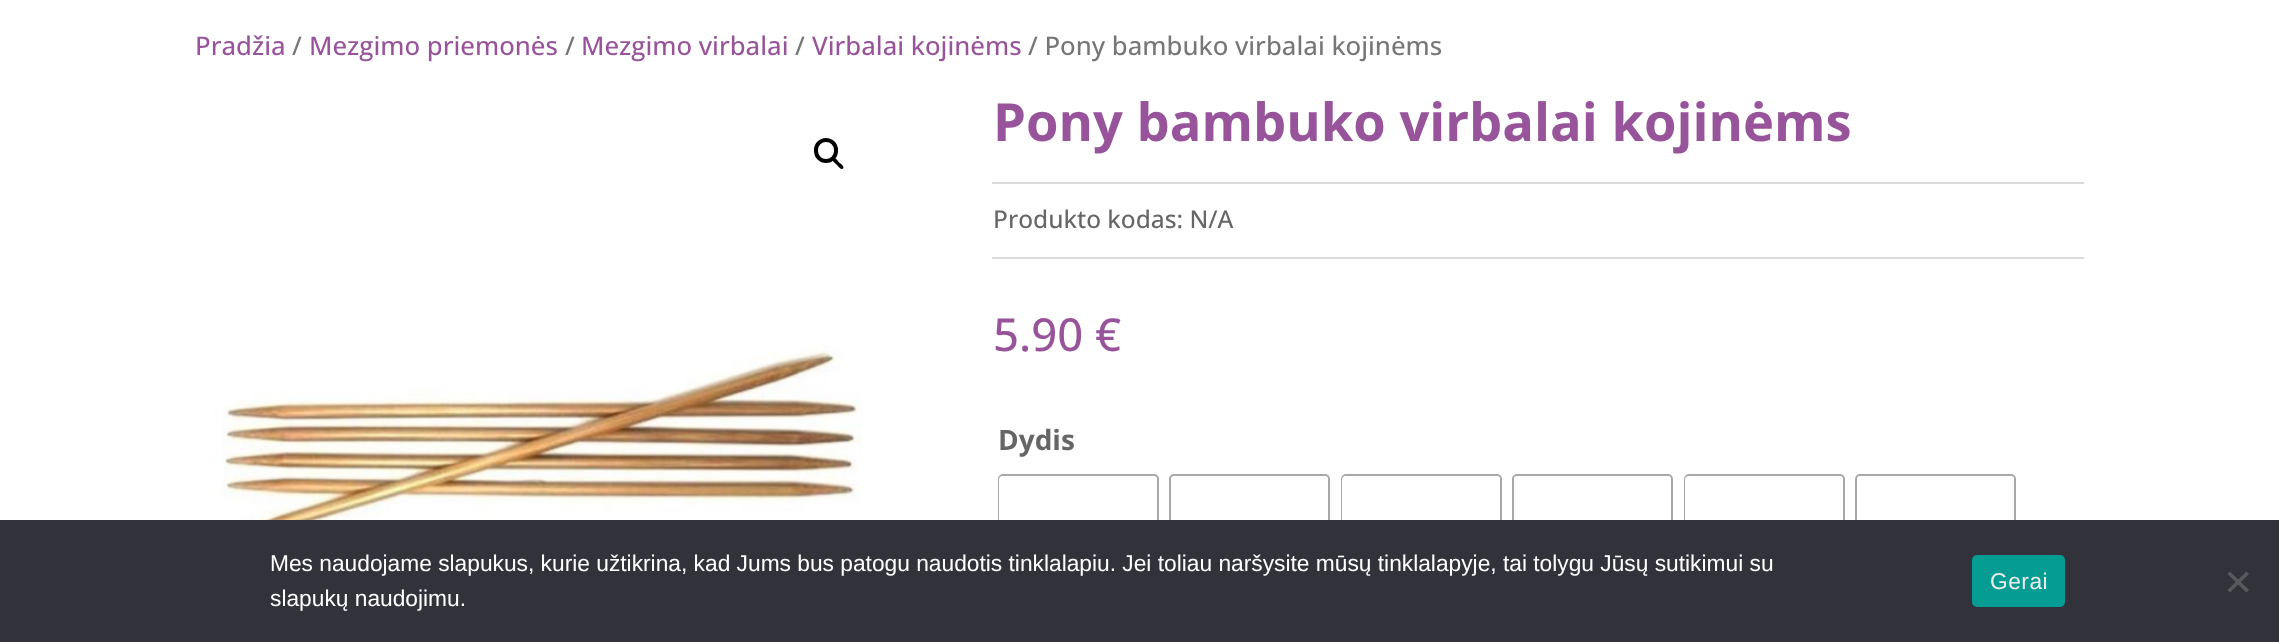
(async () => {
const canvas = document.querySelector("canvas")
canvas.width = 2279
canvas.height = 642
const c = canvas.getContext("2d")
c.miterLimit = 4
c.fontKerning = "normal"
function T(s,x,y){c.fillText(s,x,y)}
function R(x,y,w,h){c.fillRect(x,y,w,h)}
function Q(x,y,w,h,r){c.beginPath();c.roundRect(x,y,w,h,r);c.fill()}
async function I(src,x,y,w,h){const img=new Image();img.src=src;await img.decode();c.drawImage(img,x,y,w,h)}
let path
c.fillStyle="#fff"
R(0,0,2279,642)
c.font="500 25.75px Open Sans"
c.fillStyle="#98549b"
T("Pradžia",195,55)
c.fillStyle="#767676"
T("/",292,55)
c.fillStyle="#98549b"
T("Mezgimo priemonės",309,55)
c.fillStyle="#767676"
T("/",565,55)
c.fillStyle="#98549b"
T("Mezgimo virbalai",581,55)
c.fillStyle="#767676"
T("/",795,55)
c.fillStyle="#98549b"
T("Virbalai kojinėms",812,55)
c.fillStyle="#767676"
T("/ Pony bambuko virbalai kojinėms",1028,55)
await I("1.png",215,94,674,426)
c.beginPath()
c.roundRect(816,140,20,21,10)
c.strokeStyle="#000"
c.lineWidth=4
c.stroke()
c.fillStyle="#000"
path = new Path2D("M833 158.5c2-2 5 2.5 6 4c1.5 1 6 4 4 6c-2 2-5-2.5-6-3.5c-1.5-1.5-6-4.5-4-6.5z")
c.fill(path)
c.font="bold 52.5px Open Sans"
c.fillStyle="#98549b"
T("Pony bambuko virbalai kojinėms",993,141)
c.fillStyle="#dadada"
R(992,182,1092,2)
R(992,257,1092,2)
c.font="500 24.5px Open Sans"
c.fillStyle="#666"
T("Produkto kodas: N/A",993,228)
c.font="500 45.5px Open Sans"
c.fillStyle="#98549b"
T("5.90 €",993,351)
c.font="bold 28px Open Sans"
c.fillStyle="#666"
T("Dydis",998,450)
c.beginPath()
c.roundRect(999,475,159,159,4)
c.strokeStyle="#a8a8a8"
c.lineWidth=2
c.stroke()
c.fillStyle="#fff"
Q(999,476,158,158,4)
c.beginPath()
c.roundRect(1170,475,159,159,4)
c.stroke()
Q(1171,476,157,158,4)
c.beginPath()
c.roundRect(1342,475,159,159,4)
c.stroke()
Q(1342,476,158,158,4)
c.beginPath()
c.roundRect(1513,475,159,159,4)
c.stroke()
Q(1514,476,157,158,4)
c.beginPath()
c.roundRect(1685,475,159,159,4)
c.stroke()
Q(1685,476,158,158,4)
c.beginPath()
c.roundRect(1856,475,159,159,4)
c.stroke()
Q(1857,476,157,158,4)
c.fillStyle="#32323a"
R(0,520,2279,122)
c.font="22.75px Liberation Sans"
c.fillStyle="#fff"
T("Mes naudojame slapukus, kurie užtikrina, kad Jums bus patogu naudotis tinklalapiu. Jei toliau naršysite mūsų tinklalapyje, tai tolygu Jūsų sutikimui su",270,571)
T("slapukų naudojimu.",270,606)
c.fillStyle="#059d93"
Q(1972,555,93,52,5)
c.letterSpacing="0.5px"
c.fillStyle="#ebebeb"
T("Gerai",1990,589)
c.fillStyle="#59595d"
path = new Path2D("M2246.5 571.5l2.5 2.5l-19 18.5l-2.5-2.5z")
c.fill(path)
path = new Path2D("M2227.5 574l2.5-2.5l19 18.5l-2.5 2.5z")
c.fill(path)
})()
